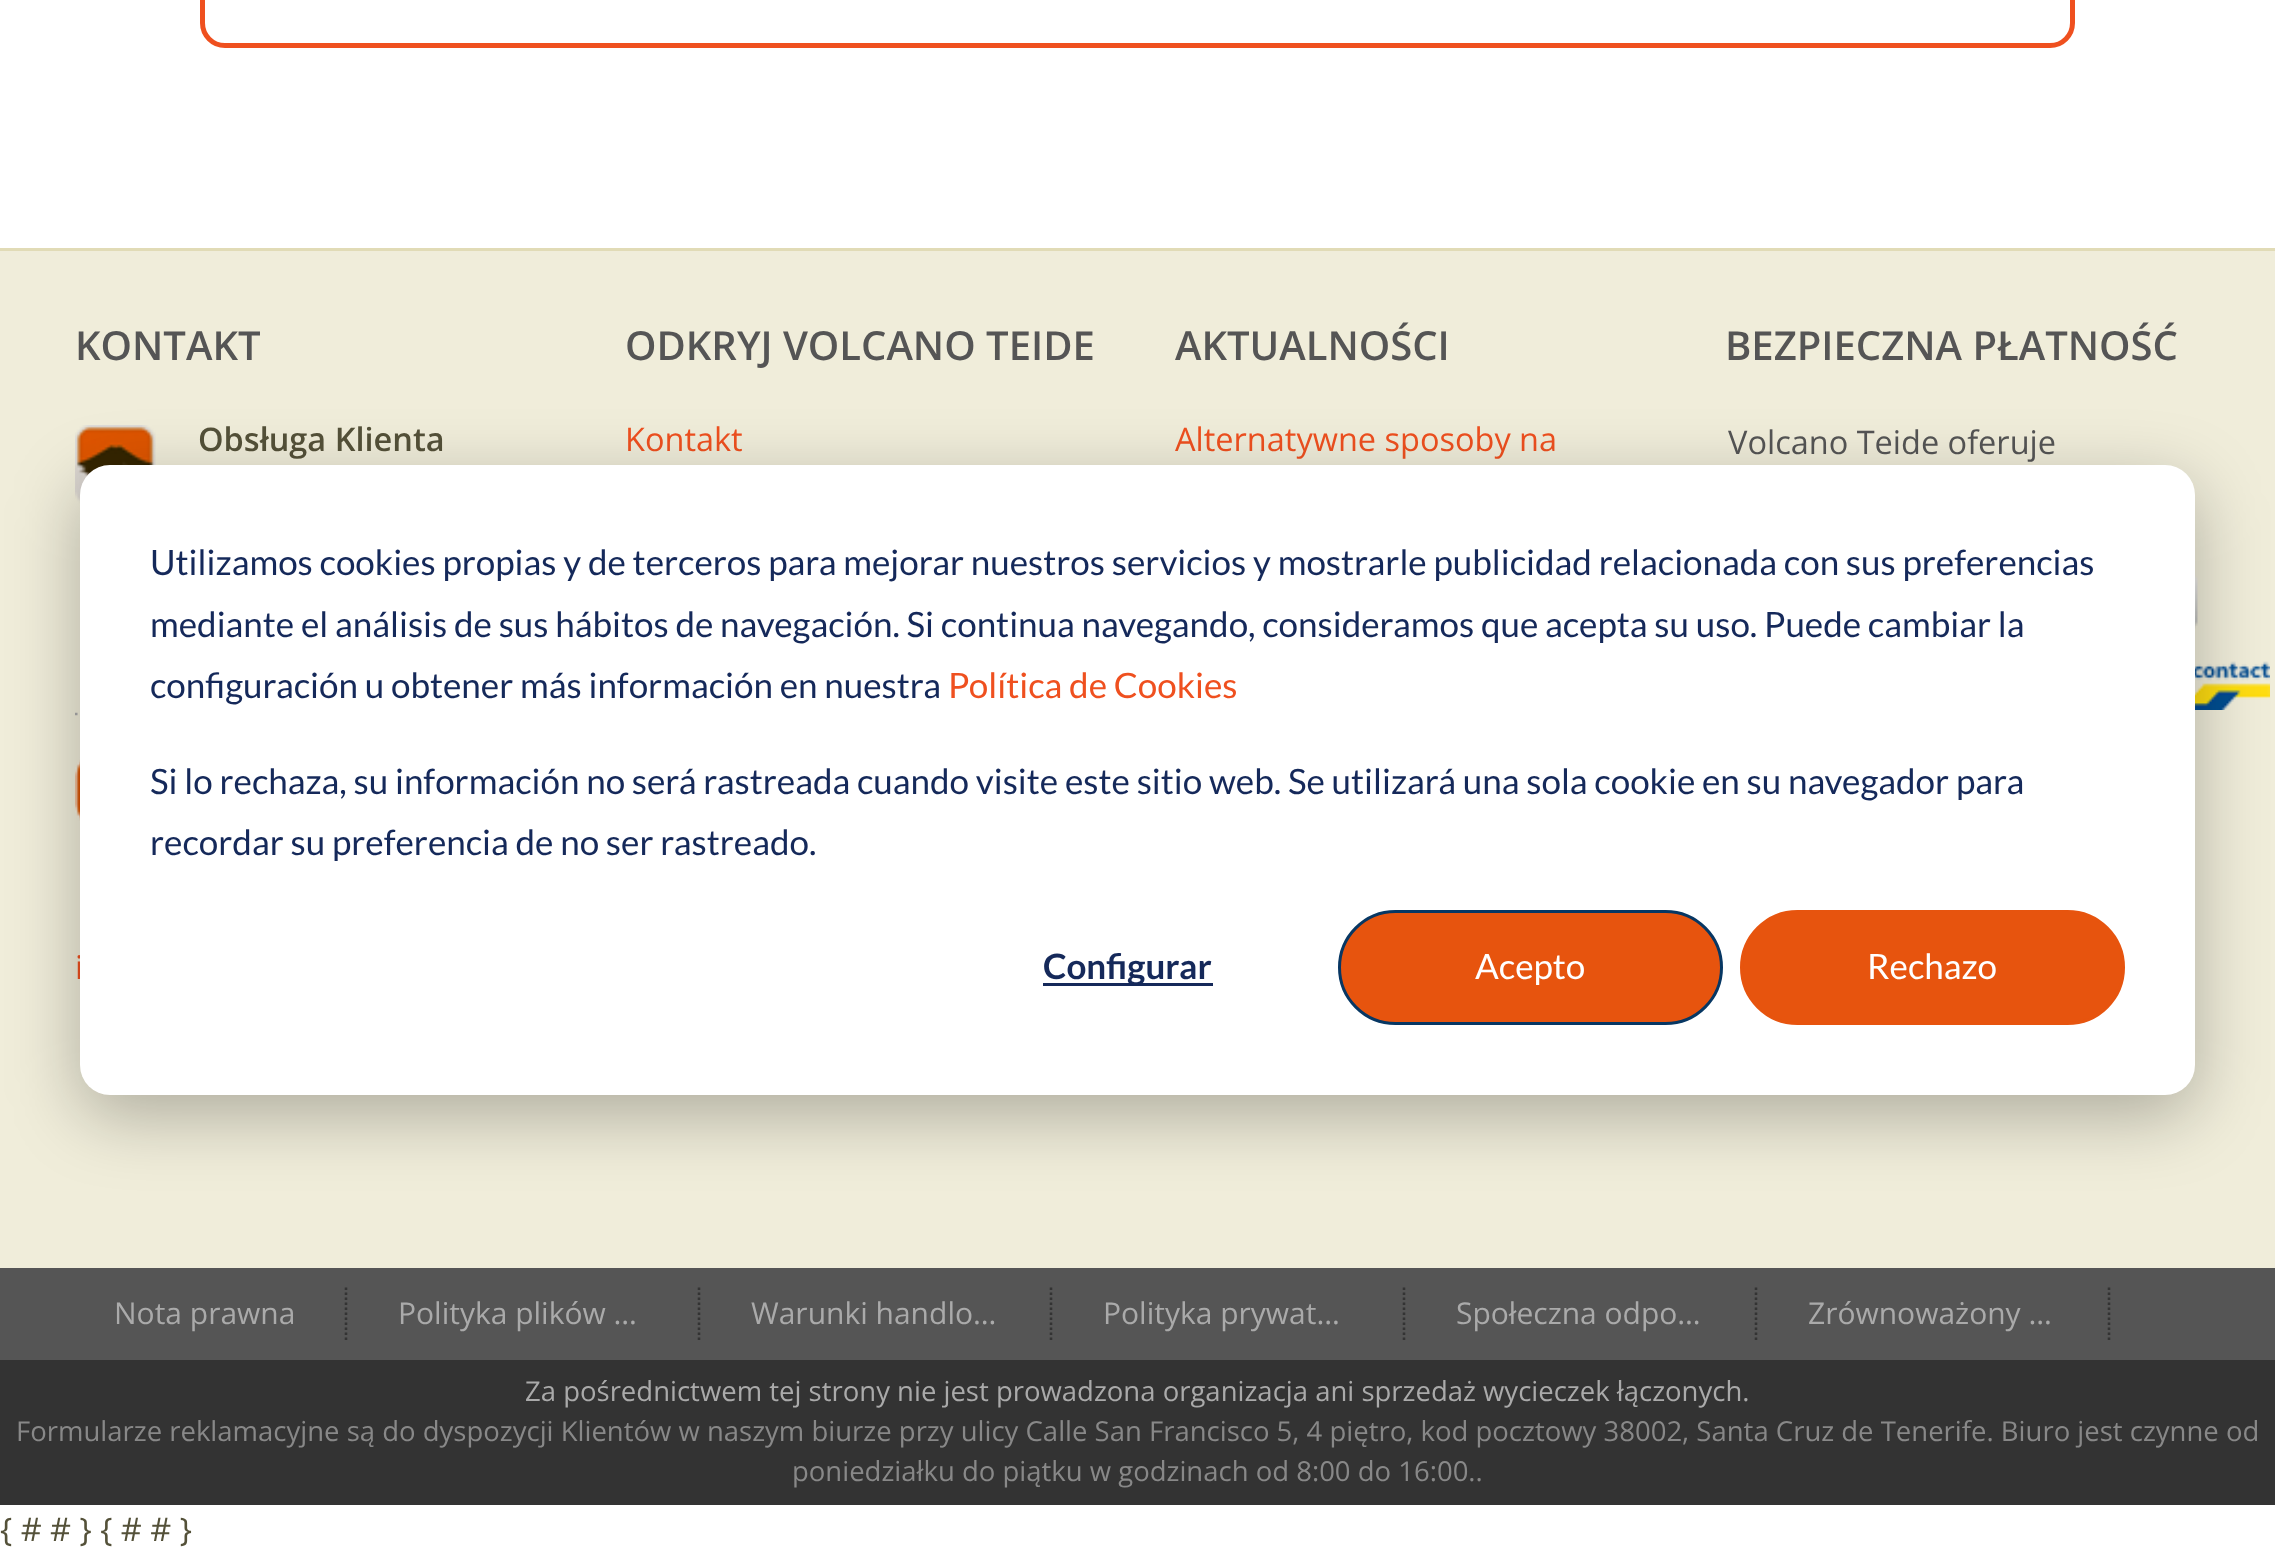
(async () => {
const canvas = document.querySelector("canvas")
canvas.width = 2275
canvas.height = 1556
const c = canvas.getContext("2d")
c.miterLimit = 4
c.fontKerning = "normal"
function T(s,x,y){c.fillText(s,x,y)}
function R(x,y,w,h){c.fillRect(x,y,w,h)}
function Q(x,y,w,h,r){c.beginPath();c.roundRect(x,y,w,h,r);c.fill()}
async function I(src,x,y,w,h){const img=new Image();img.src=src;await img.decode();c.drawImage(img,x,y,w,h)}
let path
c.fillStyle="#fff"
R(0,0,2275,1556)
c.beginPath()
c.roundRect(202.5,-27.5,1870,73,22.5)
c.strokeStyle="#ef501f"
c.lineWidth=5
c.stroke()
c.fillStyle="#f0edda"
R(0,251,2275,1017)
c.fillStyle="#e1dbb6"
R(0,248,2275,3)
c.font="600 40px Open Sans"
c.fillStyle="#555"
T("KONTAKT",75,360)
path = new Path2D("M75 714h475")
c.strokeStyle="#aaa"
c.lineWidth=2.5
c.setLineDash([2.5,2.5])
c.stroke(path)
await I("1.png",75,425,81,79)
c.font="600 32.5px Open Sans"
c.fillStyle="#545139"
T("Obsługa Klienta",198,451)
await I("2.png",75,757,5,66)
c.font="32.5px Open Sans"
c.fillStyle="#ef501f"
T("i",75,979)
c.font="600 40px Open Sans"
c.fillStyle="#555"
T("ODKRYJ VOLCANO TEIDE",625,360)
c.font="32.5px Open Sans"
c.fillStyle="#ef501f"
T("Kontakt",625,451)
c.font="600 40px Open Sans"
c.fillStyle="#555"
T("AKTUALNOŚCI",1175,360)
c.font="32.5px Open Sans"
c.fillStyle="#ef501f"
T("Alternatywne sposoby na",1175,451)
c.font="600 40px Open Sans"
c.fillStyle="#555"
T("BEZPIECZNA PŁATNOŚĆ",1725,360)
c.font="32.5px Open Sans"
T("Volcano Teide oferuje",1728,454)
await I("3.png",2195,574,3,55)
await I("4.png",2195,661,75,49)
R(0,1268,2275,92)
path = new Path2D("M346 1287.5v52.5")
c.strokeStyle="#333"
c.stroke(path)
c.font="30px Open Sans"
c.fillStyle="#aaa"
T("Nota prawna",114,1324)
path = new Path2D("M699 1287.5v52.5")
c.stroke(path)
T("Polityka plików …",398,1324)
path = new Path2D("M1051 1287.5v52.5")
c.stroke(path)
T("Warunki handlo…",751,1324)
path = new Path2D("M1404 1287.5v52.5")
c.stroke(path)
T("Polityka prywat…",1103,1324)
path = new Path2D("M1756 1287.5v52.5")
c.stroke(path)
T("Społeczna odpo…",1456,1324)
path = new Path2D("M2109 1287.5v52.5")
c.stroke(path)
T("Zrównoważony …",1808,1324)
c.fillStyle="#333"
R(0,1360,2275,145)
c.font="27.5px Open Sans"
c.fillStyle="#aaa"
T("Za pośrednictwem tej strony nie jest prowadzona organizacja ani sprzedaż wycieczek łączonych.",525,1401)
c.fillStyle="#888"
T("Formularze reklamacyjne są do dyspozycji Klientów w naszym biurze przy ulicy Calle San Francisco 5, 4 piętro, kod pocztowy 38002, Santa Cruz de Tenerife. Biuro jest czynne od",16,1441)
T("poniedziałku do piątku w godzinach od 8:00 do 16:00..",792,1481)
c.fillStyle="#00000047"
c.filter="blur(35px)"
c.beginPath()
c.roundRect(80,485,2115,630,30)
c.fill()
c.filter="none"
c.fillStyle="#fff"
Q(80,465,2115,630,30)
c.font="35px Lato"
c.fillStyle="#15295a"
T("Utilizamos cookies propias y de terceros para mejorar nuestros servicios y mostrarle publicidad relacionada con sus preferencias",150,575)
T("mediante el análisis de sus hábitos de navegación. Si continua navegando, consideramos que acepta su uso. Puede cambiar la",150,637)
T("configuración u obtener más información en nuestra",150,698)
c.fillStyle="#ef501f"
T("Política de Cookies",948,698)
c.fillStyle="#15295a"
T("Si lo rechaza, su información no será rastreada cuando visite este sitio web. Se utilizará una sola cookie en su navegador para",150,794)
T("recordar su preferencia de no ser rastreado.",150,855)
R(1043,983,170,3)
c.font="bold 35px Lato"
T("Configurar",1043,979)
c.fillStyle="#e7540e"
c.beginPath()
c.roundRect(1339.5,911.5,382,112,56)
c.fill()
c.strokeStyle="#073763"
c.lineWidth=3
c.setLineDash([])
c.stroke()
c.font="35px Lato"
c.fillStyle="#fff"
T("Acepto",1475,979)
c.fillStyle="#e7540e"
c.beginPath()
c.roundRect(1741.5,911.5,382,112,56)
c.fill()
c.strokeStyle="#e7540e"
c.stroke()
c.fillStyle="#fff"
T("Rechazo",1867,979)
c.font="32.5px Open Sans"
c.fillStyle="#545139"
T("{ # # } { # # }",0,1541)
})()
